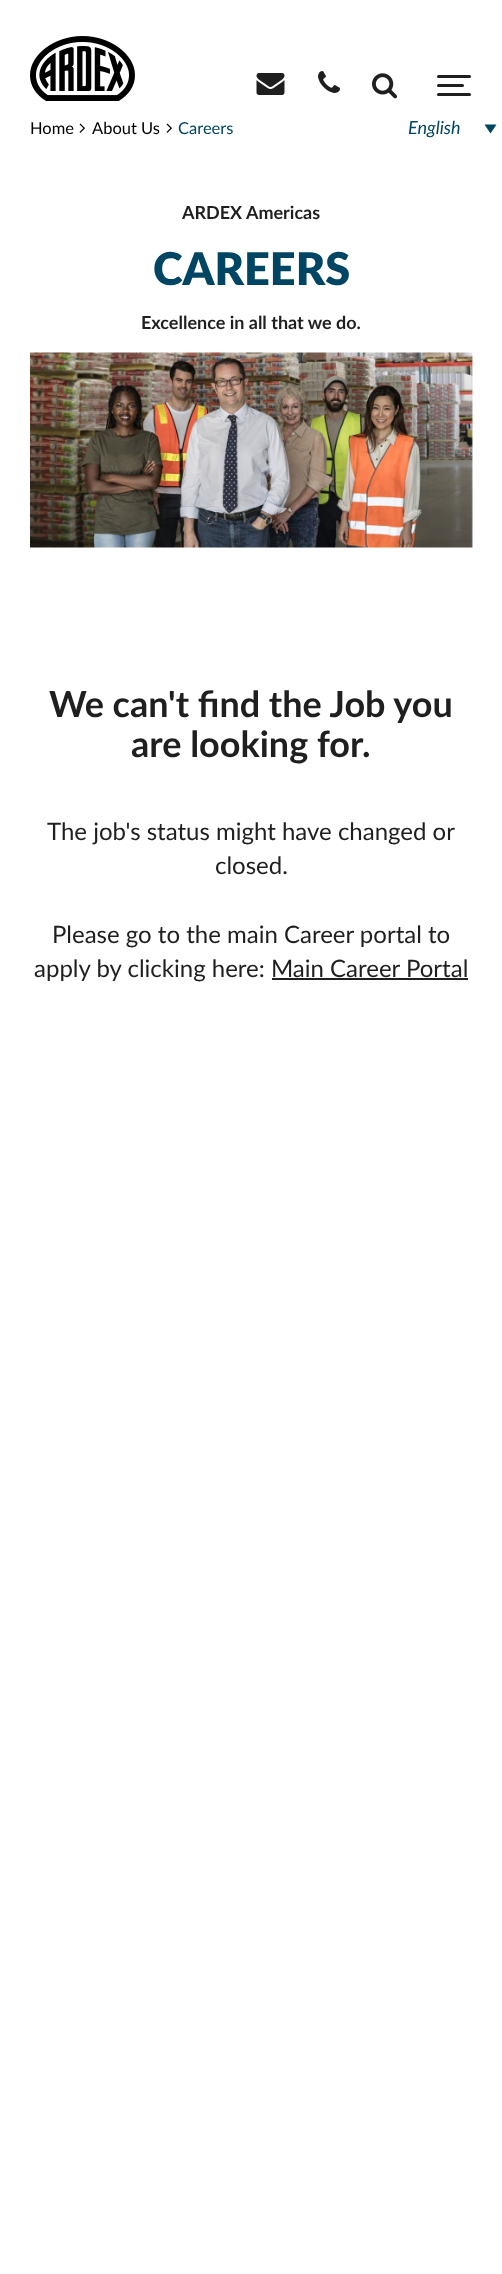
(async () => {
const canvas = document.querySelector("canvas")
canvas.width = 502
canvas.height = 2274
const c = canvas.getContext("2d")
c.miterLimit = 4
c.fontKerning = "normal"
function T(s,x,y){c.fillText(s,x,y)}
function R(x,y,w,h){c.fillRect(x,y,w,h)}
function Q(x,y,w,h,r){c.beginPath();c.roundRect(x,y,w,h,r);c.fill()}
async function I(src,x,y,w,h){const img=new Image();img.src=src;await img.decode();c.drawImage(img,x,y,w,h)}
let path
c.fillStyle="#fff"
R(0,0,502,2274)
await I("1.png",256,73,29,22)
await I("2.png",318,71,22,22)
c.font="16.5px Lato"
c.fillStyle="#000"
T("Home",30,134)
await I("3.png",79,123,6,10)
T("About Us",92,134)
await I("3.png",166,123,6,10)
c.fillStyle="#004563"
T("Careers",178,134)
await I("4.png",30,36,105,65)
await I("5.png",372,73,26,26)
c.fillStyle="#1f1f1f"
Q(437,75,34,3,1.5)
Q(437,84,27,3,1.5)
Q(437,93,34,3,1.5)
c.font="italic 18px Lato"
c.fillStyle="#004563"
T("English",408,134)
path = new Path2D("M484.5 124.5h12l-6 9z")
c.fill(path)
c.font="bold 18px Lato"
c.fillStyle="#1f1f1f"
T("ARDEX Americas",182,219)
c.font="900 45px Lato"
c.fillStyle="#004563"
T("CAREERS",153,285)
c.font="bold 18px Lato"
c.fillStyle="#1f1f1f"
T("Excellence in all that we do.",141,329)
await I("6.png",30,352,443,196)
c.font="bold 36px Lato"
T("We can't find the Job you",49,717)
T("are looking for.",131,757)
c.font="24px Lato"
T("The job's status might have changed or",47,840)
T("closed.",215,874)
T("Please go to the main Career portal to",52,943)
T("apply by clicking here: Main Career Portal",34,977)
R(272,978,196,2)
})()
